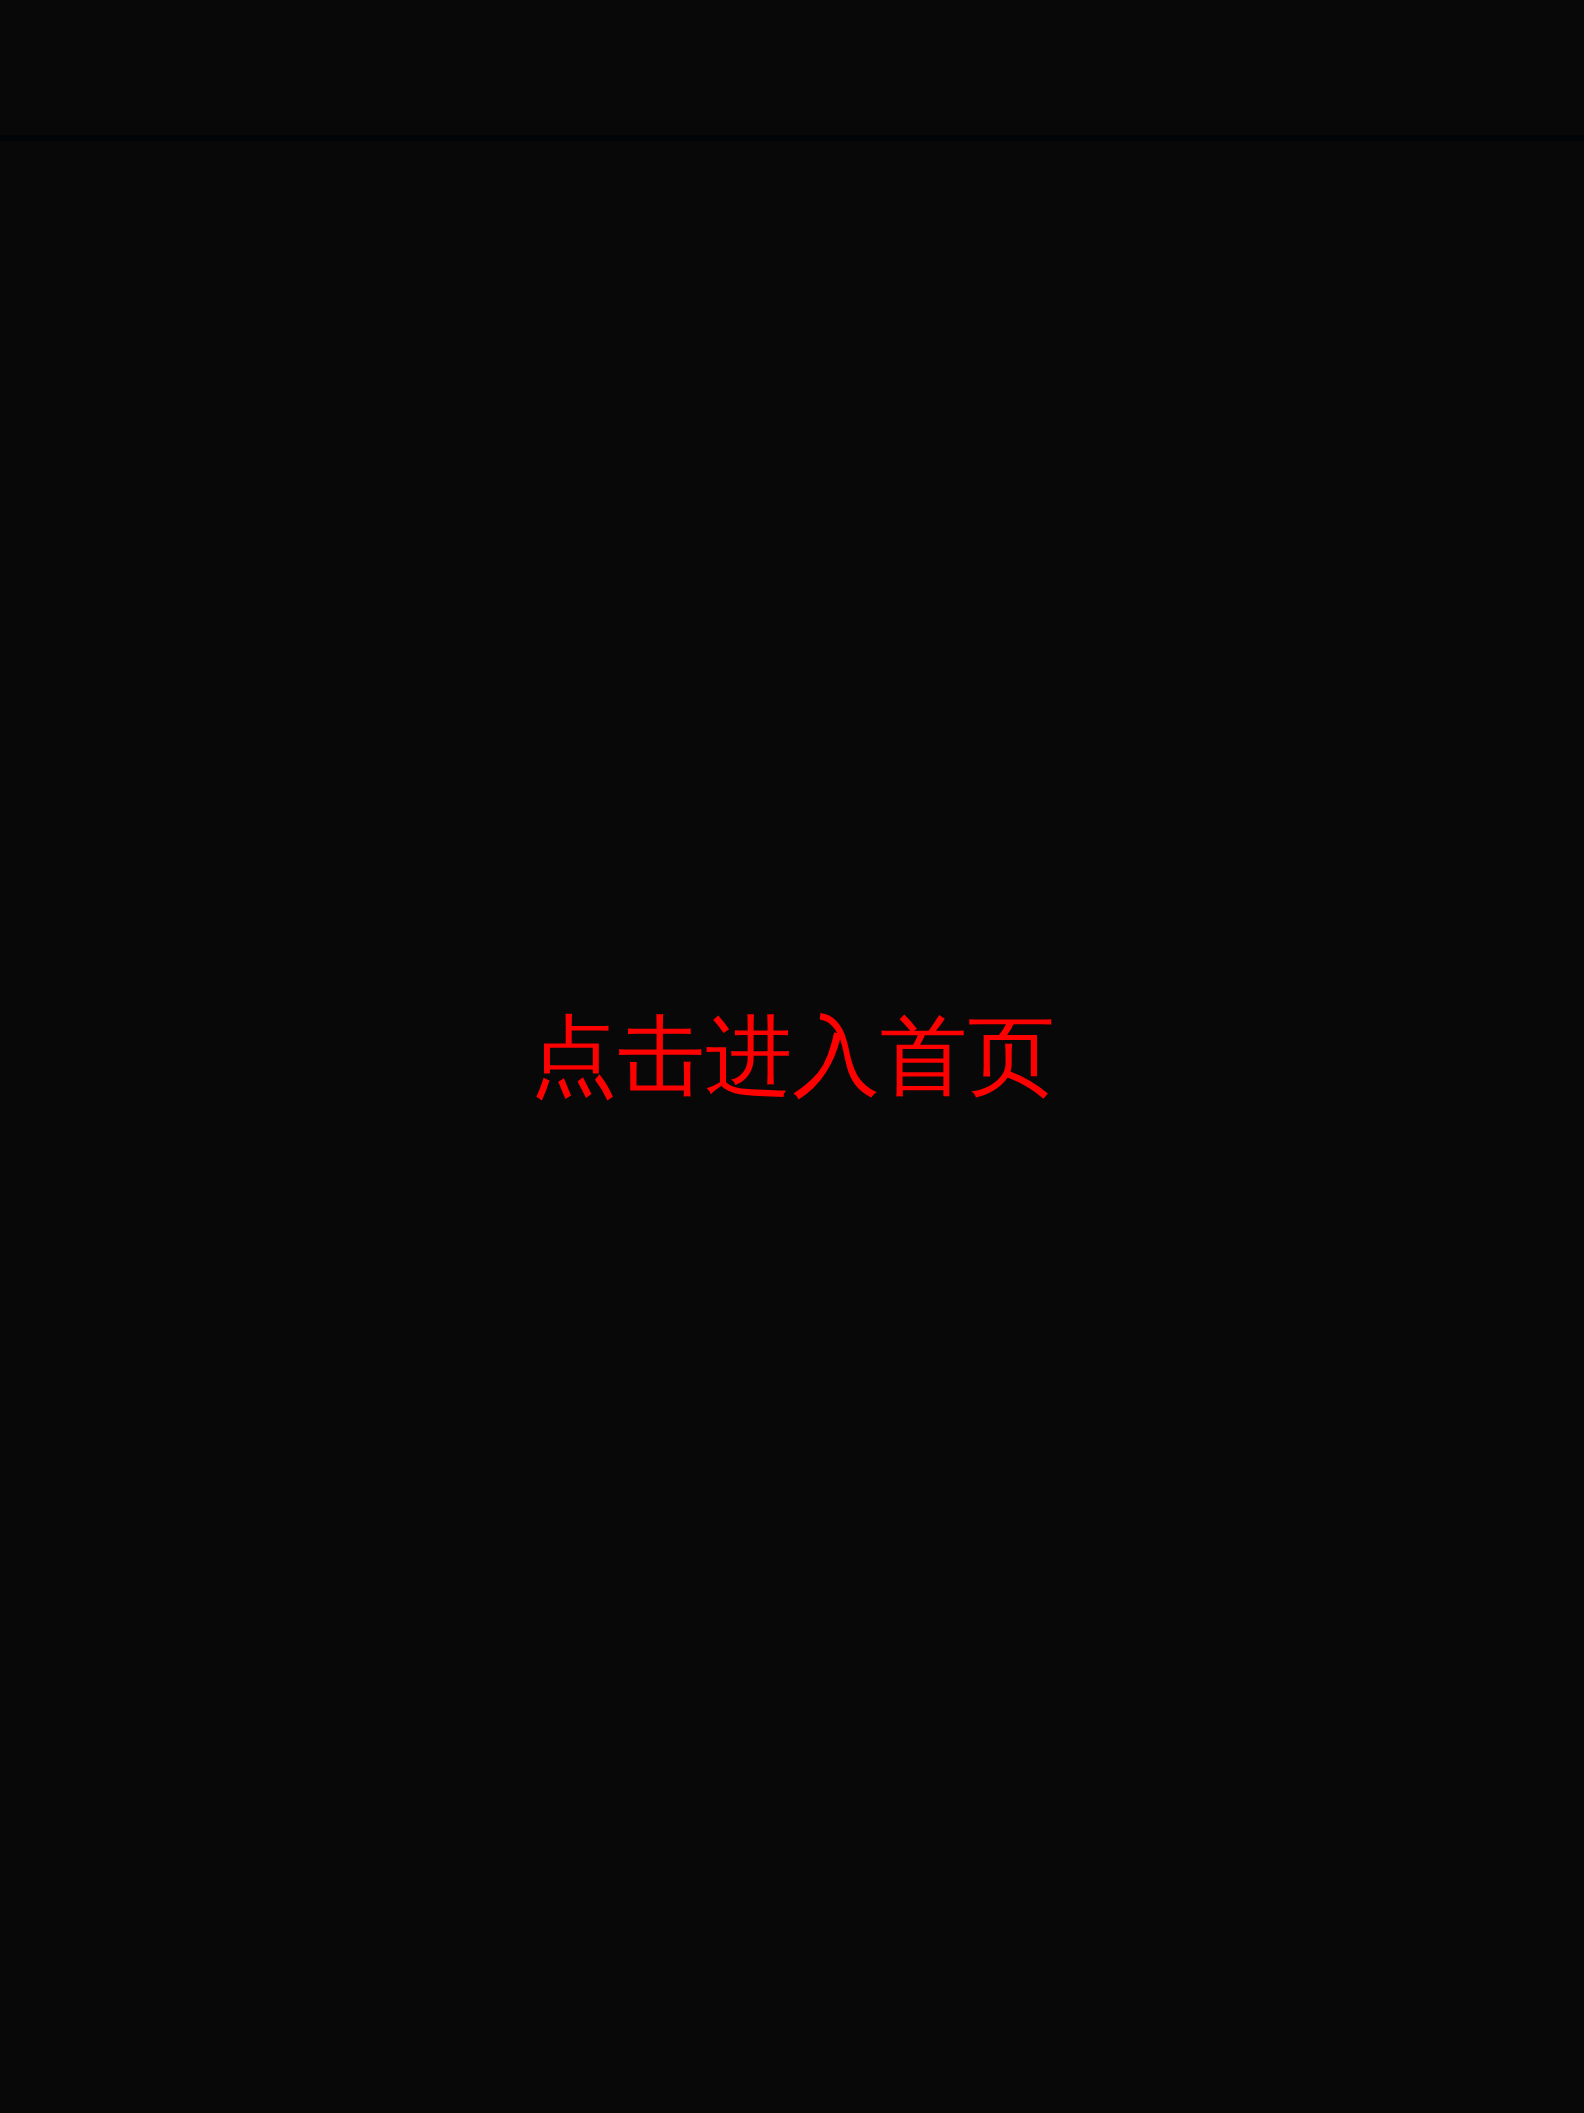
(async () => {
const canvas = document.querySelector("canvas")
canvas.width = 1584
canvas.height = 2113
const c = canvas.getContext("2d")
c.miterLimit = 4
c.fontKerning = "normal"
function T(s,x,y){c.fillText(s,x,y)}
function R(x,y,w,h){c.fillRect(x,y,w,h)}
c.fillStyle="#080808"
R(0,0,1584,2113)
c.fillStyle="#000406"
R(0,135,1584,6)
c.font="500 87.5px WenQuanYi Zen Hei"
c.fillStyle="#f00"
T("点击进入首页",530,1086)
})()
